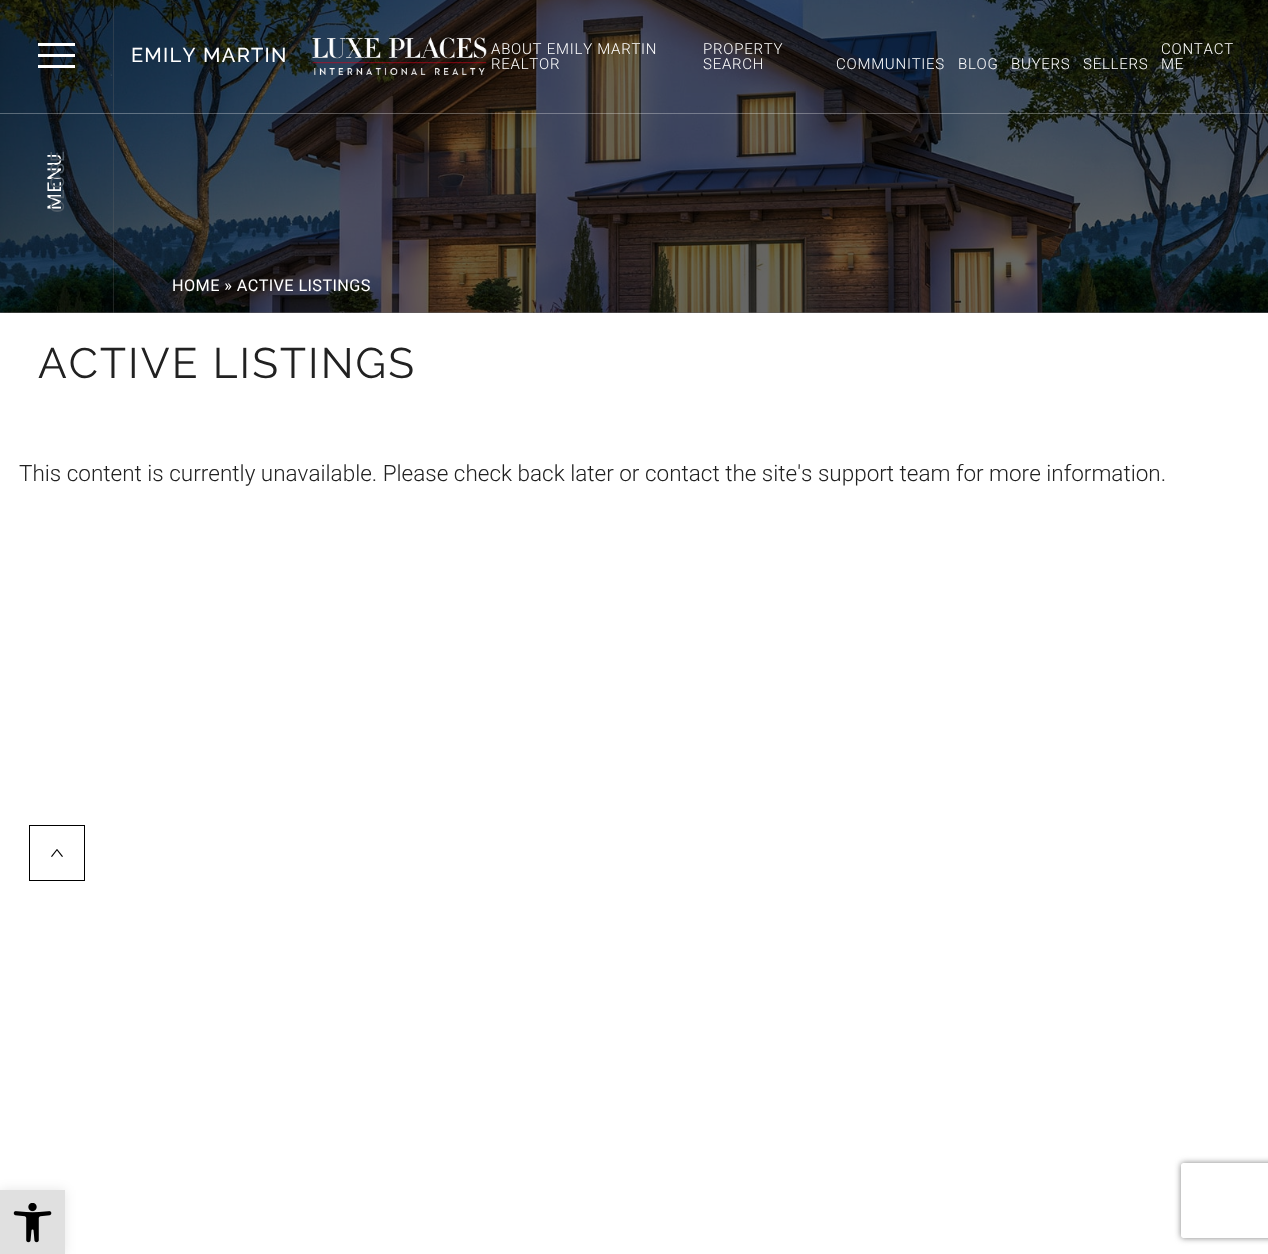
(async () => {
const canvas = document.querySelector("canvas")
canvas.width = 1268
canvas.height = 1254
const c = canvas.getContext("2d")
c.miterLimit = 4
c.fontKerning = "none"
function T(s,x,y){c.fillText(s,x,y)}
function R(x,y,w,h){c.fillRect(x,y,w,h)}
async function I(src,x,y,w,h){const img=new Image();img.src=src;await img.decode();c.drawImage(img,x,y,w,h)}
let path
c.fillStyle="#fff"
R(0,0,1268,1254)
c.fillStyle="#646363"
R(0,312,1268,1)
await I("2.png",0,0,1268,313)
c.fillStyle="#6666664d"
R(113,0,1,313)
c.fillStyle="#ffffff4d"
R(0,113,1268,1)
c.letterSpacing="1.25px"
c.font="500 20px Raleway"
c.fillStyle="#fff"
T("EMILY MARTIN",131,62)
await I("1.png",312,37,175,38)
c.letterSpacing="0.75px"
c.font="300 15px Roboto"
T("ABOUT EMILY MARTIN",491,54)
T("REALTOR",491,69)
T("PROPERTY",703,54)
T("SEARCH",703,69)
T("COMMUNITIES",836,69)
T("BLOG",958,69)
T("BUYERS",1011,69)
T("SELLERS",1083,69)
T("CONTACT",1161,54)
T("ME",1161,69)
R(38,54,37,3)
R(38,43,37,3)
R(38,65,37,3)
c.letterSpacing="1px"
c.font="19px Roboto"
c.save()
c.translate(61,210)
c.rotate(-90 * Math.PI / 180)
c.fillText("MENU",0,0)
c.restore()
c.fillStyle="#4c5965"
c.save()
c.translate(64,213)
c.rotate(-90 * Math.PI / 180)
c.fillText("CLOSE",0,0)
c.restore()
c.letterSpacing="0.4px"
c.font="16.25px Roboto"
c.fillStyle="#fff"
T("HOME » ACTIVE LISTINGS",172,291)
c.letterSpacing="2.1px"
c.font="42.5px Raleway"
c.fillStyle="#212121"
T("ACTIVE LISTINGS",38,378)
c.letterSpacing="0px"
c.font="300 22.5px Roboto"
T("This content is currently unavailable. Please check back later or contact the site's support team for more information.",19,481)
c.strokeStyle="#000"
c.strokeRect(29.5,825.5,55,55)
c.font="12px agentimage"
c.fillStyle="#000"
T("򰈒",51,858)
c.fillStyle="#0000001a"
c.filter="blur(6px)"
c.beginPath()
c.rect(0,1190,65,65)
c.fill()
c.filter="none"
c.fillStyle="#e0e0e0"
R(0,1190,65,64)
await I("3.png",13,1203,39,40)
c.save()
path = new Path2D("M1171 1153h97v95h-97zm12.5 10h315c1.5 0 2.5 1 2.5 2.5v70c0 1.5-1 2.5-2.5 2.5h-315c-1.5 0-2.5-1-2.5-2.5v-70c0-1.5 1-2.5 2.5-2.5z")
c.clip(path,"evenodd")
c.fillStyle="#808080"
c.filter="blur(3px)"
c.beginPath()
c.roundRect(1181,1163,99,75,2.5)
c.fill()
c.filter="none"
c.restore()
})()
